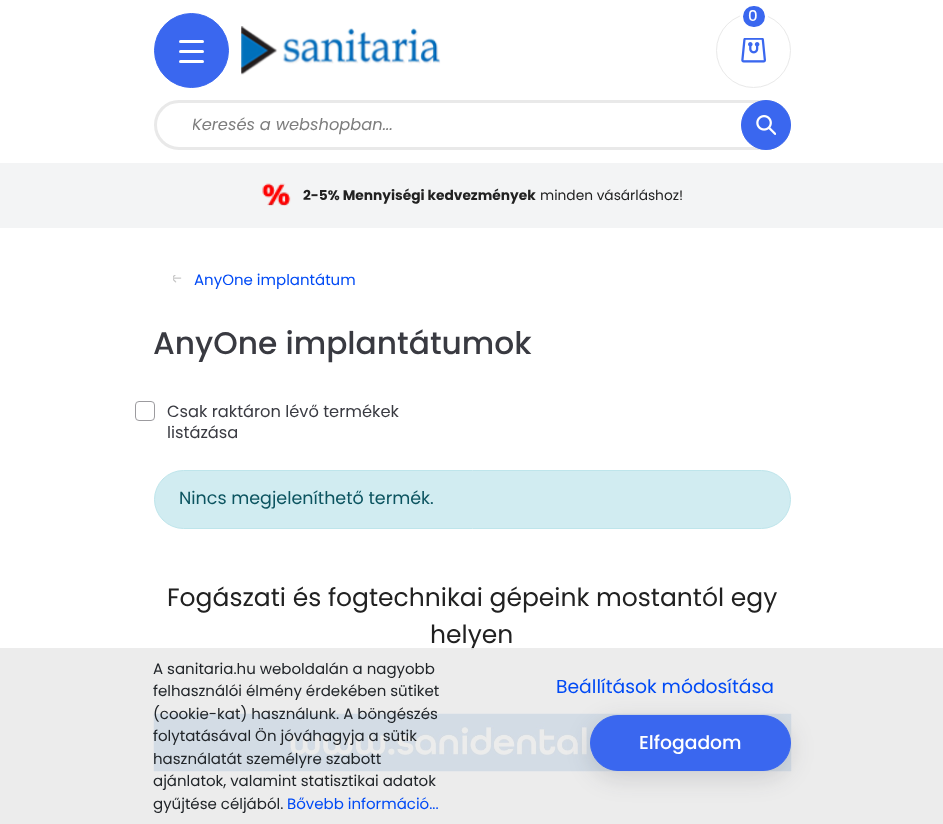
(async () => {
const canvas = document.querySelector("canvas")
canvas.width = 943
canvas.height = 824
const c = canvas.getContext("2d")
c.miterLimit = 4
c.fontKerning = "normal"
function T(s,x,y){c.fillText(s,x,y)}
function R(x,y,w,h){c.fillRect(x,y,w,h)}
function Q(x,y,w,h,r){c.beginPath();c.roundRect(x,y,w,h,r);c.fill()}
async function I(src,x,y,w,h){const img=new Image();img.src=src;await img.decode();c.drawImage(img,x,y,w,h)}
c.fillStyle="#fff"
R(0,0,943,824)
c.fillStyle="#3a67ef"
c.beginPath()
c.arc(191.5,50.5,37,0,7)
c.fill()
c.strokeStyle="#3a67ef"
c.stroke()
c.fillStyle="#fff"
Q(179,40,25,3,1.5)
Q(179,50,25,3,1.5)
Q(179,60,25,3,1.5)
await I("1.png",241,26,200,49)
c.beginPath()
c.arc(753.5,50.5,37,0,7)
c.strokeStyle="#e9e9e9"
c.stroke()
c.fillStyle="#3a67ef"
c.beginPath()
c.roundRect(741.5,4.5,25,24,12)
c.fill()
c.strokeStyle="#fff"
c.lineWidth=3
c.stroke()
c.font="500 15px Poppins"
c.fillStyle="#fff"
T("0",748,21)
await I("2.png",741,38,25,25)
c.beginPath()
c.roundRect(155.5,101.5,634,47,23.5)
c.strokeStyle="#e9e9e9"
c.stroke()
c.save()
c.beginPath()
c.rect(193,113,527,25)
c.clip()
c.font="italic 16.25px Poppins"
c.fillStyle="#7d7d7d"
T("Keresés a webshopban...",192,130)
c.restore()
c.fillStyle="#3a67ef"
c.beginPath()
c.arc(766,125,24.5,0,7)
c.fill()
c.strokeStyle="#3a67ef"
c.lineWidth=1
c.stroke()
await I("3.png",756,115,20,20)
c.fillStyle="#f3f4f5"
R(0,163,943,65)
await I("4.png",262,183,29,23)
c.font="bold 13.75px Poppins"
c.fillStyle="#212121"
T("2-5% Mennyiségi kedvezmények",303,200)
c.font="13.75px Poppins"
T("minden vásárláshoz!",540,200)
await I("5.png",173,275,9,8)
c.font="15px Poppins"
c.fillStyle="#004af5"
T("AnyOne implantátum",194,285)
c.font="500 31.25px Poppins"
c.fillStyle="#393a41"
T("AnyOne implantátumok",153,354)
c.beginPath()
c.roundRect(135.5,401.5,19,19,3.5)
c.strokeStyle="#9c9b9f"
c.stroke()
c.font="16.25px Poppins"
T("Csak raktáron lévő termékek",167,417)
T("listázása",167,438)
c.fillStyle="#d1ecf1"
c.beginPath()
c.roundRect(154.5,470.5,636,58,29)
c.fill()
c.strokeStyle="#bee5eb"
c.stroke()
c.font="17.5px Poppins"
c.fillStyle="#0c5460"
T("Nincs megjeleníthető termék.",179,504)
c.font="25px Poppins"
c.fillStyle="#212121"
T("Fogászati és fogtechnikai gépeink mostantól egy",167,606)
T("helyen",430,643)
await I("6.png",153,713,639,59)
c.fillStyle="#eaeaeae6"
R(0,648,943,176)
c.font="15px Poppins"
c.fillStyle="#212529"
T("A sanitaria.hu weboldalán a nagyobb",153,674)
T("felhasználói élmény érdekében sütiket",153,696)
T("(cookie-kat) használunk. A böngészés",153,719)
T("folytatásával Ön jóváhagyja a sütik",153,741)
T("használatát személyre szabott",153,764)
T("ajánlatok, valamint statisztikai adatok",153,786)
T("gyűjtése céljából.",153,809)
c.fillStyle="#004af5"
T("Bővebb információ...",287,809)
c.font="18.75px Poppins"
T("Beállítások módosítása",556,693)
c.fillStyle="#20202c26"
c.filter="blur(12.5px)"
c.beginPath()
c.roundRect(590,721,201,57,28.5)
c.fill()
c.filter="none"
c.fillStyle="#3a67ef"
c.beginPath()
c.roundRect(590.5,715.5,200,55,27.5)
c.fill()
c.strokeStyle="#3a67ef"
c.stroke()
c.font="500 18.75px Poppins"
c.fillStyle="#fff"
T("Elfogadom",639,749)
})()
